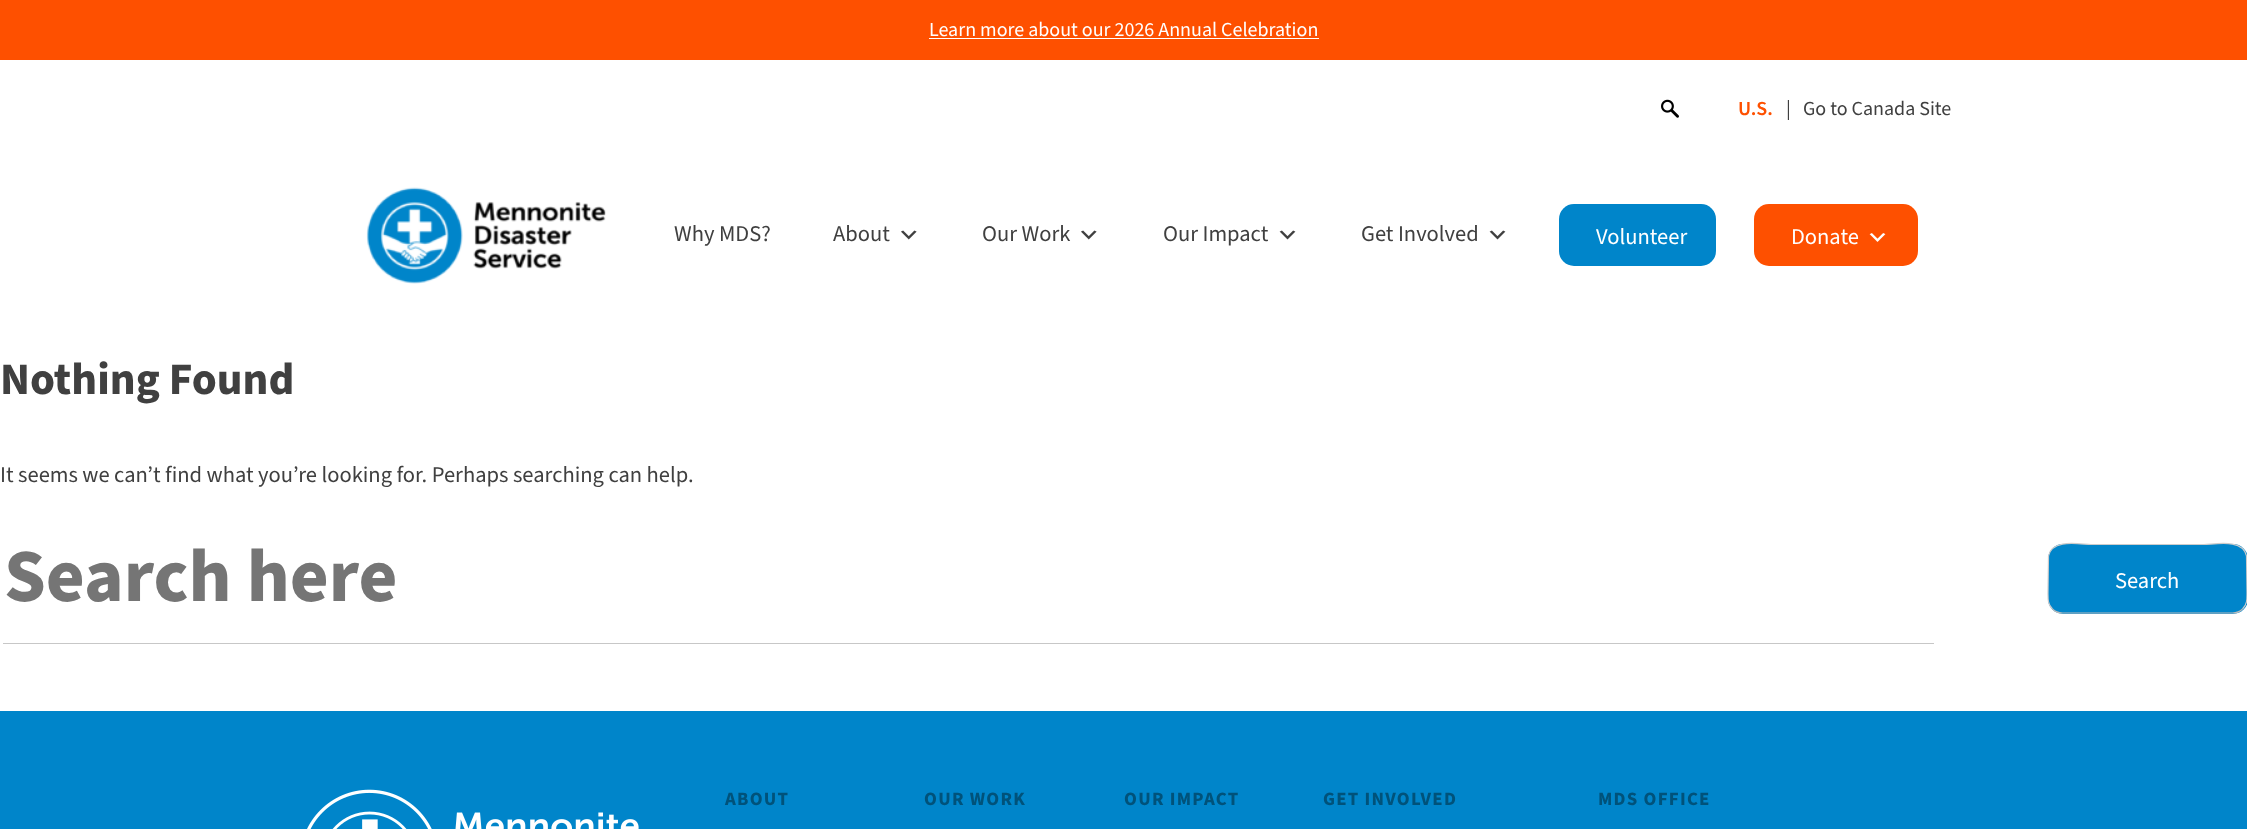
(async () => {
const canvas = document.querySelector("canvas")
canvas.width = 2247
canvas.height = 829
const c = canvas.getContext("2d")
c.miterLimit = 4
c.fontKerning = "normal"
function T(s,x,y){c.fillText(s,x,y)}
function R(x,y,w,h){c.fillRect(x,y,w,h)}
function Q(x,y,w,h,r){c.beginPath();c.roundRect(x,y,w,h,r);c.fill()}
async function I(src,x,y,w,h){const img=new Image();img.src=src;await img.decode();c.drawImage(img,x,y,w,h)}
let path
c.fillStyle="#fff"
R(0,0,2247,829)
c.fillStyle="#fe5000"
R(0,0,2247,60)
c.font="20px Source Sans Pro"
c.fillStyle="#fff"
T("Learn more about our 2026 Annual Celebration",929,36)
R(929,38,390,1)
await I("1.png",1661,99,18,19)
c.font="600 20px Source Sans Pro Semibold"
c.fillStyle="#fe5000"
T("U.S.",1738,115)
c.font="20px Source Sans Pro"
c.fillStyle="#404040"
T("|",1786,115)
T("Go to Canada Site",1803,115)
await I("2.png",366,187,240,97)
c.font="22.5px Source Sans Pro"
T("Why MDS?",674,241)
T("About",833,241)
await I("3.png",901,230,16,10)
T("Our Work",982,241)
await I("3.png",1081,230,16,10)
T("Our Impact",1163,241)
await I("4.png",1279,230,17,10)
T("Get Involved",1361,241)
await I("4.png",1489,230,17,10)
c.fillStyle="#0085ca"
Q(1559,204,157,62,15)
c.fillStyle="#fff"
T("Volunteer",1596,244)
c.fillStyle="#fe5000"
Q(1754,204,164,62,15)
c.fillStyle="#fff"
T("Donate",1791,244)
await I("5.png",1869,233,17,9)
c.font="bold 45px Source Sans Pro"
c.fillStyle="#404040"
T("Nothing Found",0,394)
c.font="22.5px Source Sans Pro"
T("It seems we can’t find what you’re looking for. Perhaps searching can help.",0,482)
c.fillStyle="#c7c7c7"
R(3,643,1931,1)
c.font="bold 75px Source Sans Pro"
c.fillStyle="#757575"
T("Search here",4,601)
c.fillStyle="#0085ca"
Q(2048,544,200,70,15)
path = new Path2D("M2242.5 609c-2.5 2.5-6 4-10 4h-170c-4 0-7.5-1.5-10-4")
c.strokeStyle="#bbb"
c.lineWidth=1.2
c.stroke(path)
path = new Path2D("M2052.5 609c-5-5-4.5-10.5-4.5-17l.5-36c3.5-18 32.5-11.5 42.5-11.5h113c10 0 39-6.5 42.5 11.5l.5 36c0 6.5 .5 12-4.5 17")
c.strokeStyle="#ccc"
c.stroke(path)
c.font="22.5px Source Sans Pro"
c.fillStyle="#fff"
T("Search",2115,588)
c.fillStyle="#0085ca"
R(0,711,2247,118)
await I("6.png",307,789,332,40)
c.letterSpacing="1.25px"
c.font="bold 18.75px Source Sans Pro"
c.fillStyle="#00527a"
T("ABOUT",725,805)
T("OUR WORK",924,805)
T("OUR IMPACT",1124,805)
T("GET INVOLVED",1323,805)
T("MDS OFFICE",1598,805)
})()
